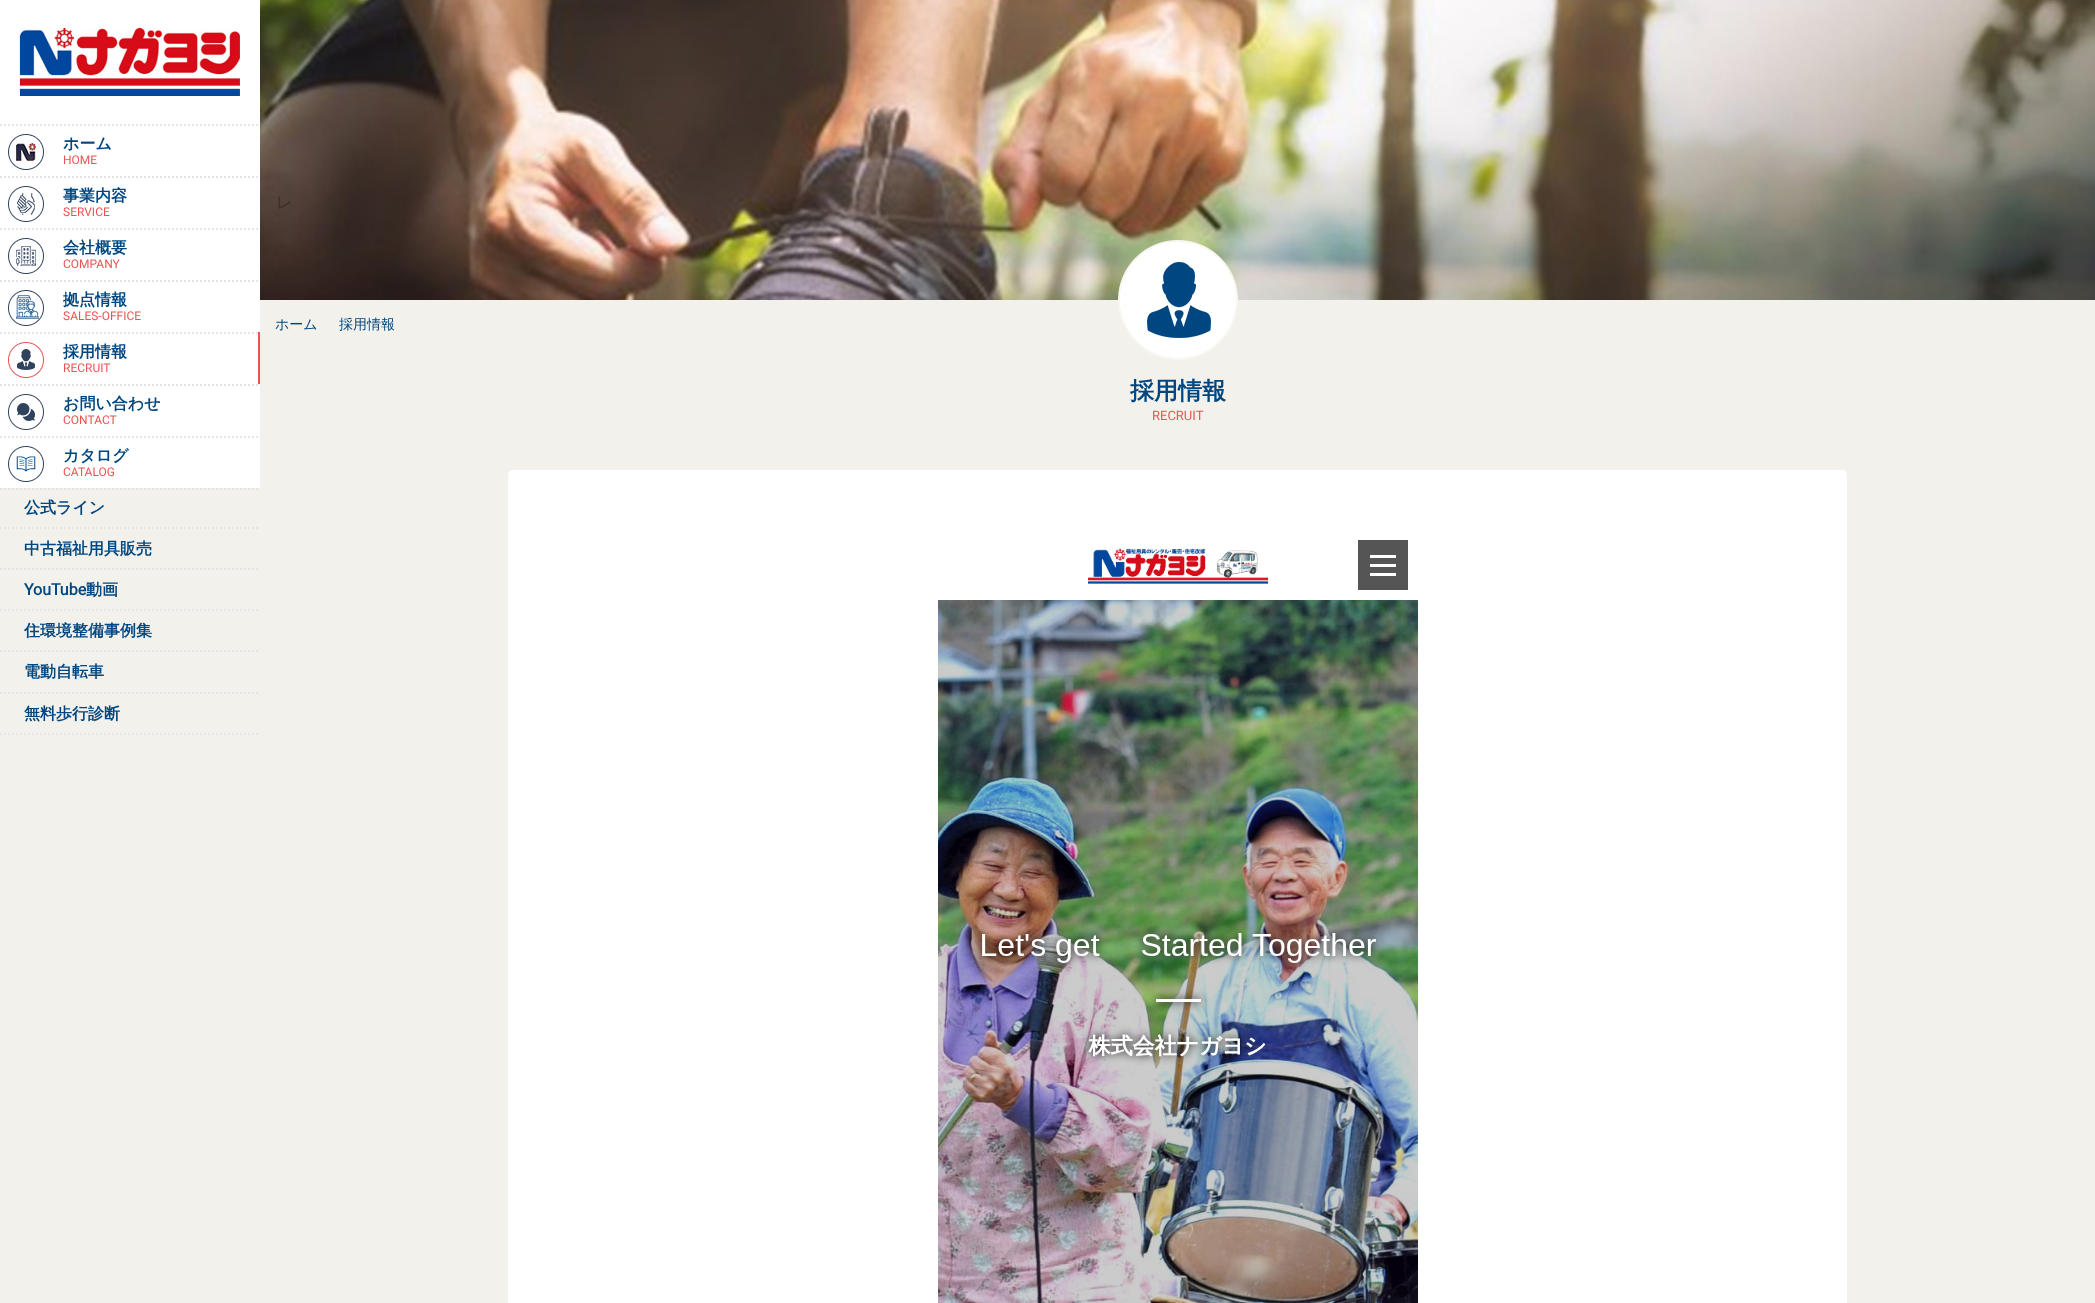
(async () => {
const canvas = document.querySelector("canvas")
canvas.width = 2095
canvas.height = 1303
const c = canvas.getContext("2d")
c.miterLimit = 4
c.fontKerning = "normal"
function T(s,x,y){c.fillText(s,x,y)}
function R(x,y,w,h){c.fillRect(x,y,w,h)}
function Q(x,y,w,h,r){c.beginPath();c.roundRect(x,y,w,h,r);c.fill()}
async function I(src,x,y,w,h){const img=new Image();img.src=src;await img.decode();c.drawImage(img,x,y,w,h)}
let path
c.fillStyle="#f3f1eb"
R(0,0,2095,1303)
c.fillStyle="#fff"
R(0,0,260,488)
await I("1.png",19,27,221,69)
await I("2.png",8,134,36,36)
path = new Path2D("M0 125h260")
c.strokeStyle="#e5e5e5"
c.lineWidth=2
c.setLineDash([2,2])
c.stroke(path)
c.font="bold 16px WenQuanYi Zen Hei"
c.fillStyle="#004781"
T("ホーム",63,149)
c.font="12px Roboto"
c.fillStyle="#eb5353"
T("HOME",63,164)
await I("3.png",8,186,36,36)
path = new Path2D("M0 177h260")
c.stroke(path)
c.font="bold 16px WenQuanYi Zen Hei"
c.fillStyle="#004781"
T("事業内容",63,201)
c.font="12px Roboto"
c.fillStyle="#eb5353"
T("SERVICE",63,216)
await I("9.png",260,0,1835,300)
c.font="bold 16px WenQuanYi Zen Hei"
c.fillStyle="#3f312a"
T("レ",276,208)
await I("4.png",8,238,36,36)
path = new Path2D("M0 229h260")
c.stroke(path)
c.fillStyle="#004781"
T("会社概要",63,253)
c.font="12px Roboto"
c.fillStyle="#eb5353"
T("COMPANY",63,268)
await I("5.png",8,290,36,36)
path = new Path2D("M0 281h260")
c.stroke(path)
c.font="bold 16px WenQuanYi Zen Hei"
c.fillStyle="#004781"
T("拠点情報",63,305)
c.font="12px Roboto"
c.fillStyle="#eb5353"
T("SALES-OFFICE",63,320)
await I("6.png",8,342,36,36)
path = new Path2D("M0 333h260")
c.stroke(path)
c.font="bold 16px WenQuanYi Zen Hei"
c.fillStyle="#004781"
T("採用情報",63,357)
c.fillStyle="#eb5353"
R(258,332,2,52)
c.font="12px Roboto"
T("RECRUIT",63,372)
await I("7.png",8,394,36,36)
path = new Path2D("M0 385h260")
c.stroke(path)
c.font="bold 16px WenQuanYi Zen Hei"
c.fillStyle="#004781"
T("お問い合わせ",63,409)
c.font="12px Roboto"
c.fillStyle="#eb5353"
T("CONTACT",63,424)
await I("8.png",8,446,36,36)
path = new Path2D("M0 437h260")
c.stroke(path)
c.font="bold 16px WenQuanYi Zen Hei"
c.fillStyle="#004781"
T("カタログ",63,461)
c.font="12px Roboto"
c.fillStyle="#eb5353"
T("CATALOG",63,476)
path = new Path2D("M0 489h260")
c.stroke(path)
path = new Path2D("M0 528h260")
c.stroke(path)
c.font="bold 16px WenQuanYi Zen Hei"
c.fillStyle="#004781"
T("公式ライン",24,513)
path = new Path2D("M0 569h260")
c.stroke(path)
T("中古福祉用具販売",24,554)
path = new Path2D("M0 610h260")
c.stroke(path)
c.font="bold 16px Roboto"
T("YouTube",24,595)
c.font="bold 16px WenQuanYi Zen Hei"
T("動画",86,595)
path = new Path2D("M0 651h260")
c.stroke(path)
T("住環境整備事例集",24,636)
path = new Path2D("M0 693h260")
c.stroke(path)
T("電動自転車",24,677)
path = new Path2D("M0 734h260")
c.stroke(path)
T("無料歩行診断",24,719)
c.font="500 14px WenQuanYi Zen Hei"
T("ホーム",275,329)
T("採用情報",339,329)
await I("10.png",1118,240,120,120)
c.font="bold 24px WenQuanYi Zen Hei"
T("採用情報",1130,399)
c.font="13px Roboto"
c.fillStyle="#eb5353"
T("RECRUIT",1152,420)
c.fillStyle="#fff"
Q(508,470,1339,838,5)
await I("11.png",938,540,480,763)
})()
